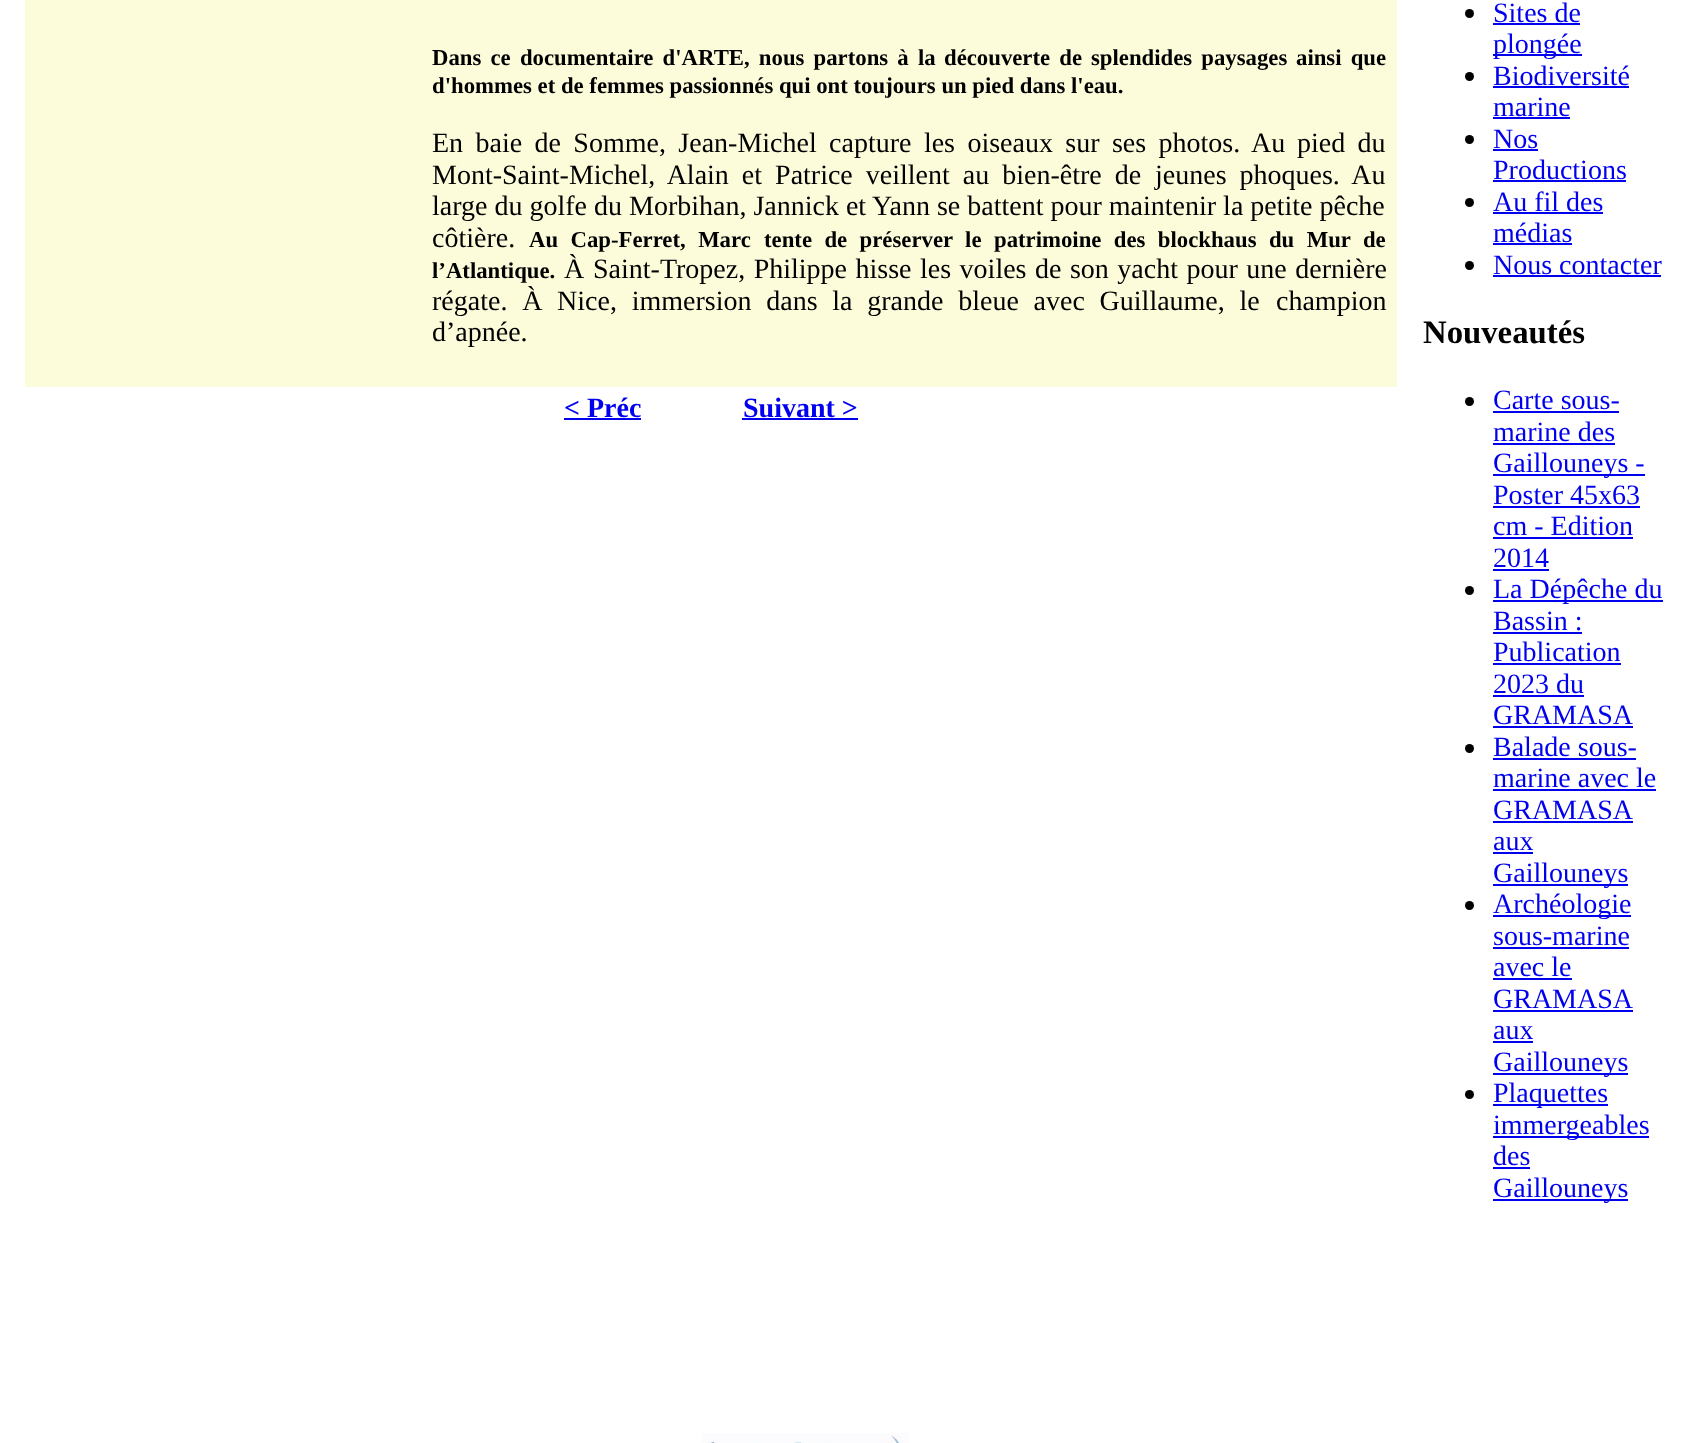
(async () => {
const canvas = document.querySelector("canvas")
canvas.width = 1686
canvas.height = 1443
const c = canvas.getContext("2d")
c.miterLimit = 4
c.fontKerning = "normal"
function T(s,x,y){c.fillText(s,x,y)}
function R(x,y,w,h){c.fillRect(x,y,w,h)}
async function I(src,x,y,w,h){const img=new Image();img.src=src;await img.decode();c.drawImage(img,x,y,w,h)}
c.fillStyle="#fff"
R(0,0,1686,1443)
c.fillStyle="#fcfcdb"
R(25,0,1372,387)
c.wordSpacing="3.5px"
c.font="bold 22.75px Liberation Serif"
c.fillStyle="#000"
T("Dans ce documentaire d'ARTE, nous partons à la",432,65)
T("découverte de",944,65)
T("splendides paysages",1091,65)
T("ainsi que",1296,65)
c.wordSpacing="0px"
T("d'hommes et de femmes passionnés qui ont toujours un pied dans l'eau.",432,93)
c.wordSpacing="5.4px"
c.font="28px Liberation Serif"
T("En baie de Somme, Jean-Michel capture les oiseaux sur ses photos. Au",432,152)
T("pied du",1297,152)
c.wordSpacing="6px"
T("Mont-Saint-Michel, Alain et Patrice veillent au bien-être de",432,184)
T("jeunes phoques. Au",1155,184)
c.wordSpacing="0px"
T("large du golfe du Morbihan, Jannick et Yann se battent pour maintenir la petite pêche",432,215)
T("côtière.",432,247)
c.wordSpacing="6.75px"
c.font="bold 22.75px Liberation Serif"
T("Au Cap-Ferret, Marc",529,247)
T("tente de préserver le patrimoine des blockhaus du Mur de",764,247)
c.wordSpacing="0px"
T("l’Atlantique.",432,278)
c.font="28px Liberation Serif"
T("À",564,278)
c.wordSpacing="1.5px"
T("Saint-Tropez, Philippe hisse les voiles de son yacht pour une dernière",593,278)
c.wordSpacing="7.75px"
T("régate. À Nice, immersion dans la grande bleue avec Guillaume, le",432,310)
c.wordSpacing="0px"
T("champion",1276,310)
T("d’apnée.",432,341)
c.font="bold 28px Liberation Serif"
c.fillStyle="#00e"
T("< Préc",564,417)
R(564,418,77,2)
T("Suivant >",743,417)
R(742,418,116,2)
c.fillStyle="#000"
c.beginPath()
c.arc(1469.5,13.5,4.5,0,7)
c.fill()
c.font="28px Liberation Serif"
c.fillStyle="#00e"
T("Sites de",1493,22)
R(1493,23,87,2)
R(1493,54,89,2)
T("plongée",1493,53)
c.fillStyle="#000"
c.beginPath()
c.arc(1469.5,76.5,4.5,0,7)
c.fill()
c.fillStyle="#00e"
T("Biodiversité",1493,85)
R(1493,86,136,2)
T("marine",1493,116)
R(1493,117,77,2)
c.fillStyle="#000"
c.beginPath()
c.arc(1469.5,139.5,4.5,0,7)
c.fill()
c.fillStyle="#00e"
T("Nos",1493,148)
R(1493,149,45,2)
T("Productions",1493,179)
R(1493,180,133,2)
c.fillStyle="#000"
c.beginPath()
c.arc(1469.5,202.5,4.5,0,7)
c.fill()
c.fillStyle="#00e"
T("Au fil des",1493,211)
R(1493,212,110,2)
T("médias",1493,242)
R(1493,243,79,2)
c.fillStyle="#000"
c.beginPath()
c.arc(1469.5,265.5,4.5,0,7)
c.fill()
c.fillStyle="#00e"
T("Nous contacter",1493,274)
R(1493,275,168,2)
c.font="bold 32.75px Liberation Serif"
c.fillStyle="#000"
T("Nouveautés",1423,343)
c.beginPath()
c.arc(1469.5,401.5,4.5,0,7)
c.fill()
c.font="28px Liberation Serif"
c.fillStyle="#00e"
T("Carte sous-",1493,409)
R(1493,411,126,2)
T("marine des",1493,441)
R(1493,443,122,2)
R(1493,474,152,2)
T("Gaillouneys -",1493,472)
T("Poster 45x63",1493,504)
R(1493,506,147,2)
T("cm - Edition",1493,535)
R(1493,537,140,2)
T("2014",1493,567)
R(1493,569,56,2)
c.fillStyle="#000"
c.beginPath()
c.arc(1469.5,590.5,4.5,0,7)
c.fill()
c.fillStyle="#00e"
R(1493,600,170,2)
T("La Dépêche du",1493,598)
T("Bassin :",1493,630)
R(1493,632,89,2)
T("Publication",1493,661)
R(1493,663,128,2)
T("2023 du",1493,693)
R(1493,695,91,2)
T("GRAMASA",1493,724)
R(1493,726,140,2)
c.fillStyle="#000"
c.beginPath()
c.arc(1469.5,748.5,4.5,0,7)
c.fill()
c.fillStyle="#00e"
T("Balade sous-",1493,756)
R(1493,758,143,2)
T("marine avec le",1493,787)
R(1493,789,163,2)
T("GRAMASA",1493,819)
R(1493,821,140,2)
T("aux",1493,850)
R(1493,852,40,2)
R(1493,884,135,2)
T("Gaillouneys",1493,882)
c.fillStyle="#000"
c.beginPath()
c.arc(1469.5,905.5,4.5,0,7)
c.fill()
c.fillStyle="#00e"
R(1493,915,138,2)
T("Archéologie",1493,913)
T("sous-marine",1493,945)
R(1493,947,136,2)
T("avec le",1493,976)
R(1493,978,79,2)
T("GRAMASA",1493,1008)
R(1493,1010,140,2)
T("aux",1493,1039)
R(1493,1041,40,2)
R(1493,1073,135,2)
T("Gaillouneys",1493,1071)
c.fillStyle="#000"
c.beginPath()
c.arc(1469.5,1094.5,4.5,0,7)
c.fill()
c.fillStyle="#00e"
R(1493,1104,115,2)
T("Plaquettes",1493,1102)
R(1493,1136,156,2)
T("immergeables",1493,1134)
T("des",1493,1165)
R(1493,1167,37,2)
R(1493,1199,135,2)
T("Gaillouneys",1493,1197)
await I("1.png",702,1433,207,10)
})()
